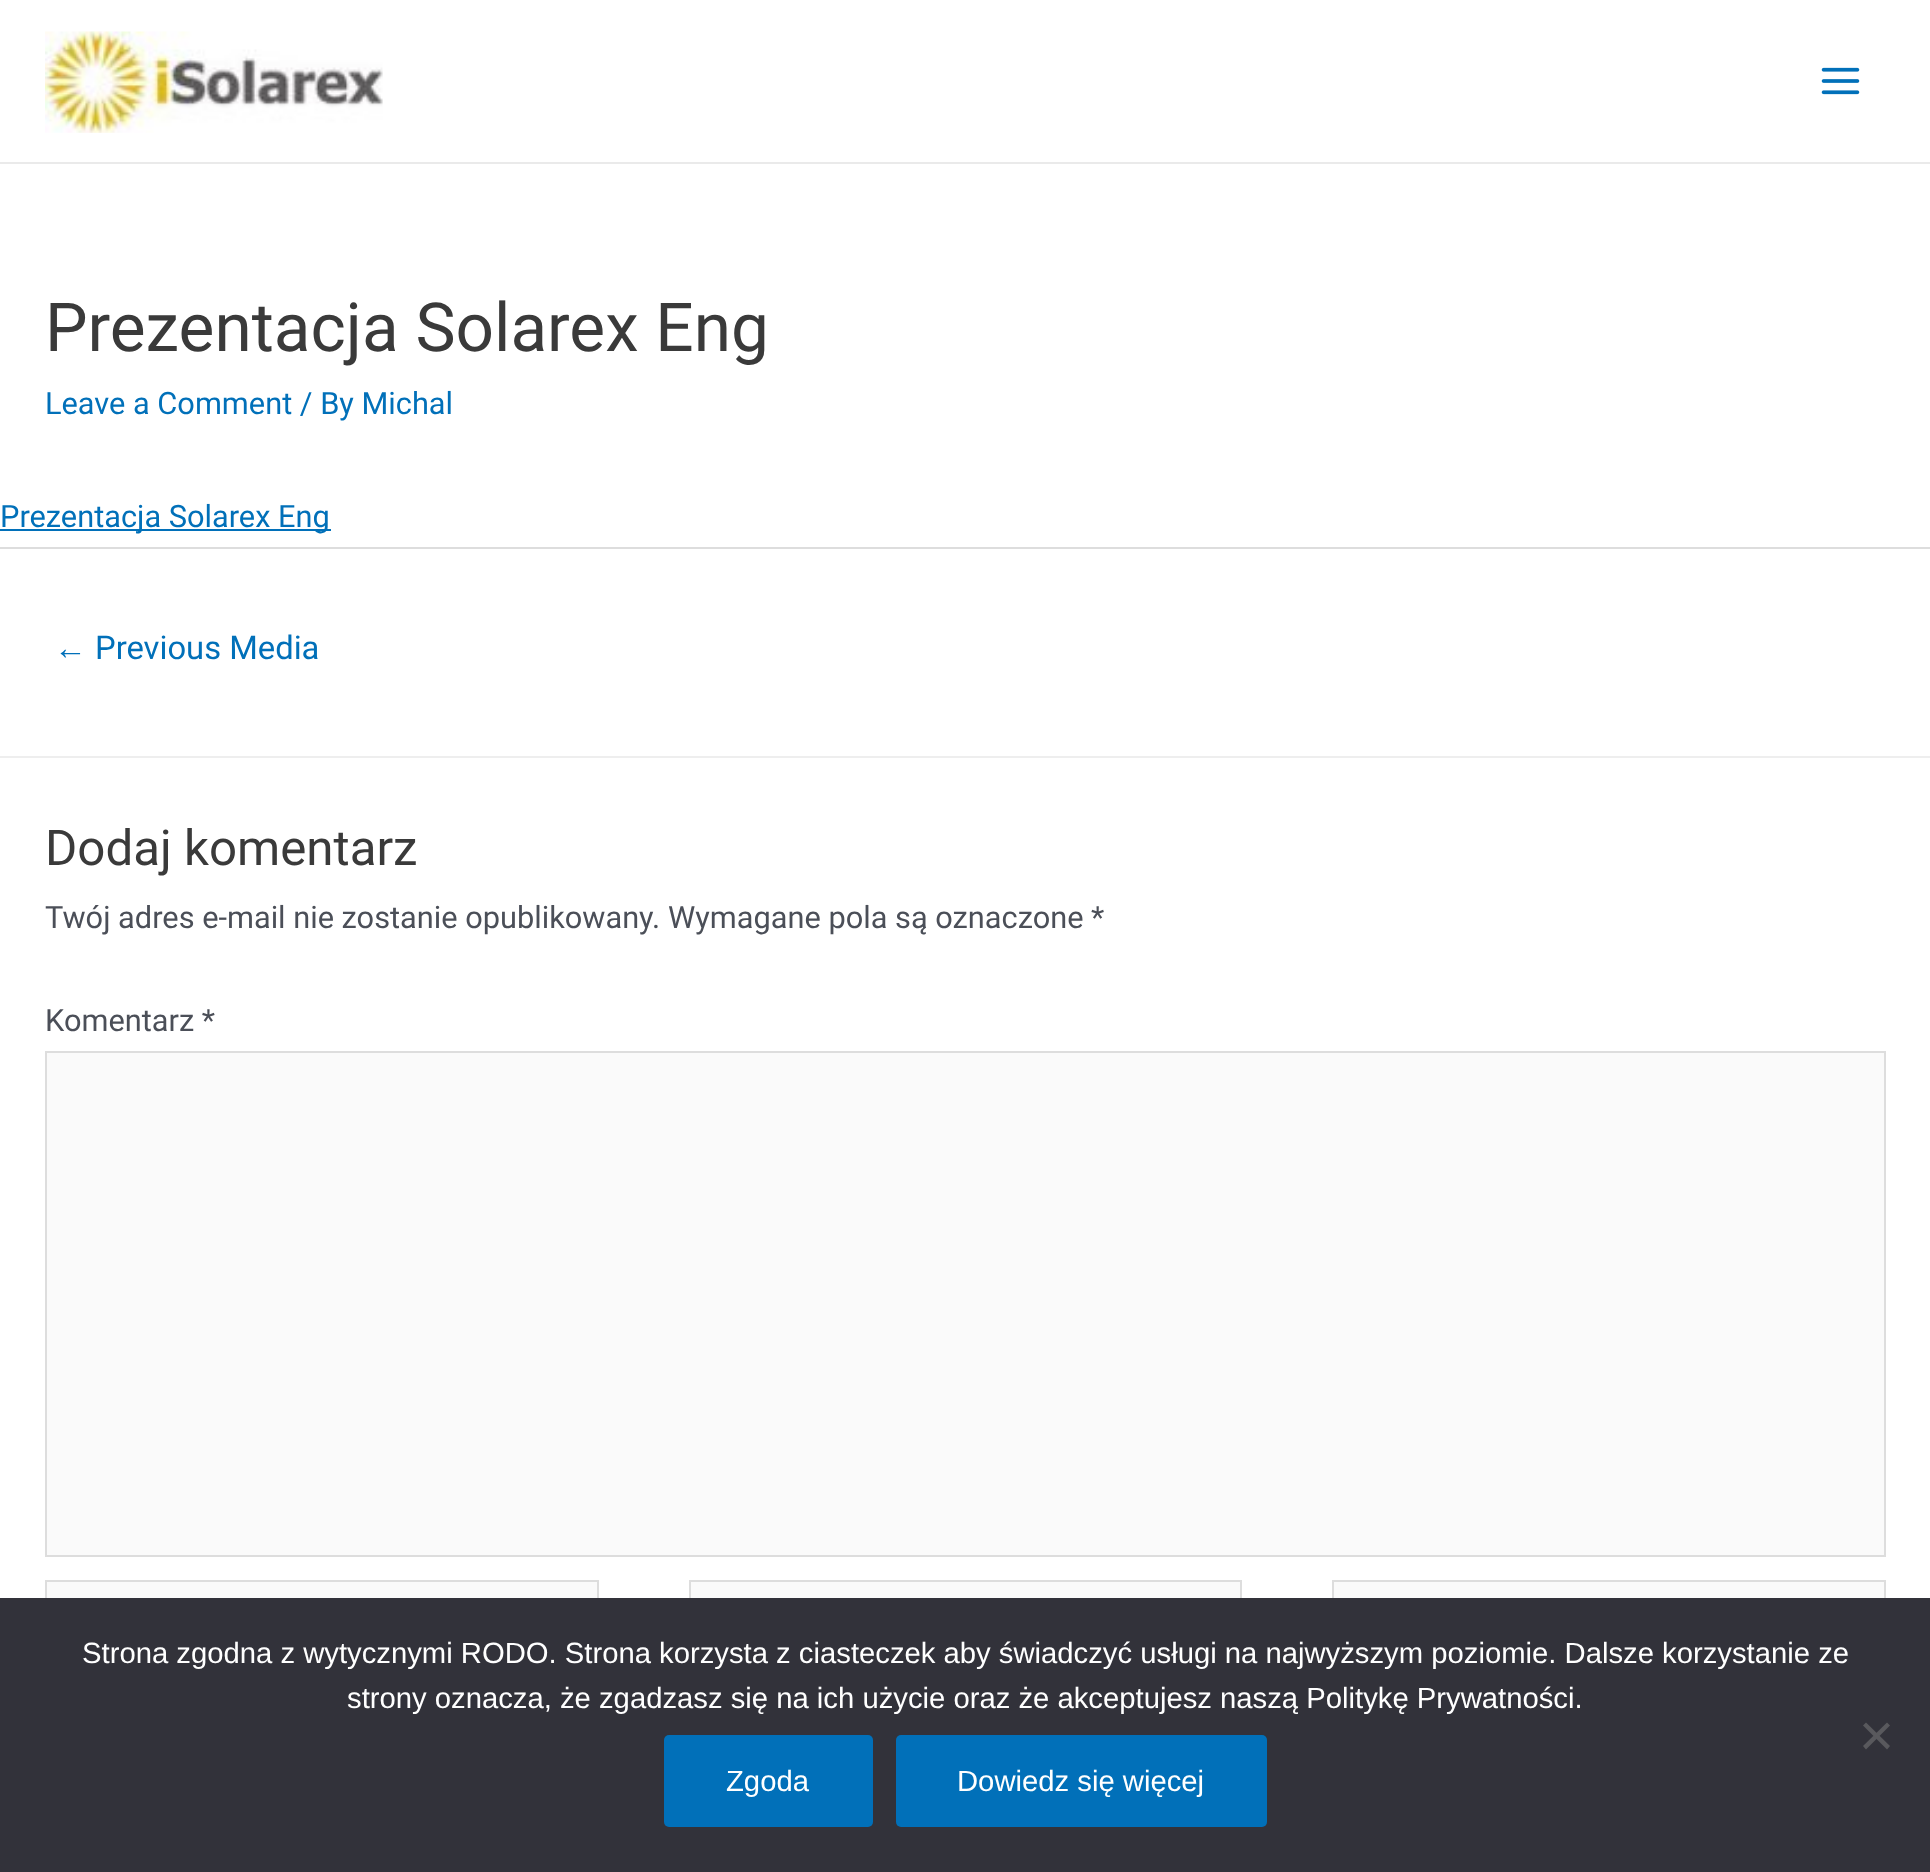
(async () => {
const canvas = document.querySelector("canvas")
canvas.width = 1930
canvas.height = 1872
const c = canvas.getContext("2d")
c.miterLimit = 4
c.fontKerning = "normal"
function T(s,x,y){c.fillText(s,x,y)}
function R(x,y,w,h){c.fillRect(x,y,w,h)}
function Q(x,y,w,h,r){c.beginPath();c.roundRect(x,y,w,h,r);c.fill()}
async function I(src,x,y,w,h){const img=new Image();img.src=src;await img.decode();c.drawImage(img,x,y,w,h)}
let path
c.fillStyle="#fff"
R(0,0,1930,1872)
c.fillStyle="#eaeaea"
R(0,162,1930,2)
await I("1.png",45,31,338,102)
await I("2.png",1821,67,39,28)
c.font="67.5px Roboto"
c.fillStyle="#3a3a3a"
T("Prezentacja Solarex Eng",45,351)
c.font="30.75px Roboto"
c.fillStyle="#0170b9"
T("Leave a Comment / By Michal",45,414)
R(0,529,331,2)
T("Prezentacja Solarex Eng",0,527)
c.fillStyle="#ddd"
R(0,547,1930,2)
c.font="32.75px Liberation Sans"
c.fillStyle="#0170b9"
T("←",54,659)
c.font="32.75px Roboto"
T("Previous Media",95,659)
c.fillStyle="#eee"
R(0,756,1930,2)
c.font="49.25px Roboto"
c.fillStyle="#3a3a3a"
T("Dodaj komentarz",45,865)
c.font="30.75px Roboto"
c.fillStyle="#4b4f58"
T("Twój adres e-mail nie zostanie opublikowany.",45,928)
T("Wymagane pola są oznaczone *",668,928)
T("Komentarz *",45,1031)
c.fillStyle="#fafafa"
c.beginPath()
c.rect(46,1052,1839,504)
c.fill()
c.strokeStyle="#ddd"
c.lineWidth=2
c.stroke()
R(47,1582,550,16)
c.strokeRect(46,1581,552,85)
R(691,1582,549,16)
c.strokeRect(690,1581,551,85)
R(1334,1582,550,16)
c.strokeRect(1333,1581,552,85)
c.fillStyle="#32323a"
R(0,1598,1930,274)
c.font="29.25px Liberation Sans"
c.fillStyle="#fff"
T("Strona zgodna z wytycznymi RODO. Strona korzysta z ciasteczek aby świadczyć usługi na najwyższym poziomie. Dalsze korzystanie ze",82,1663)
T("strony oznacza, że zgadzasz się na ich użycie oraz że akceptujesz naszą Politykę Prywatności.",347,1708)
c.fillStyle="#59595d"
path = new Path2D("M1887 1722.5l3 3l-24 24l-3-3.5z")
c.fill(path)
path = new Path2D("M1863 1725.5l3-3l24 23.5l-3 3.5z")
c.fill(path)
c.fillStyle="#0170b9"
Q(664,1735,209,92,5)
c.fillStyle="#fff"
T("Zgoda",726,1791)
c.fillStyle="#0170b9"
Q(896,1735,371,92,5)
c.fillStyle="#fff"
T("Dowiedz się więcej",957,1791)
})()
